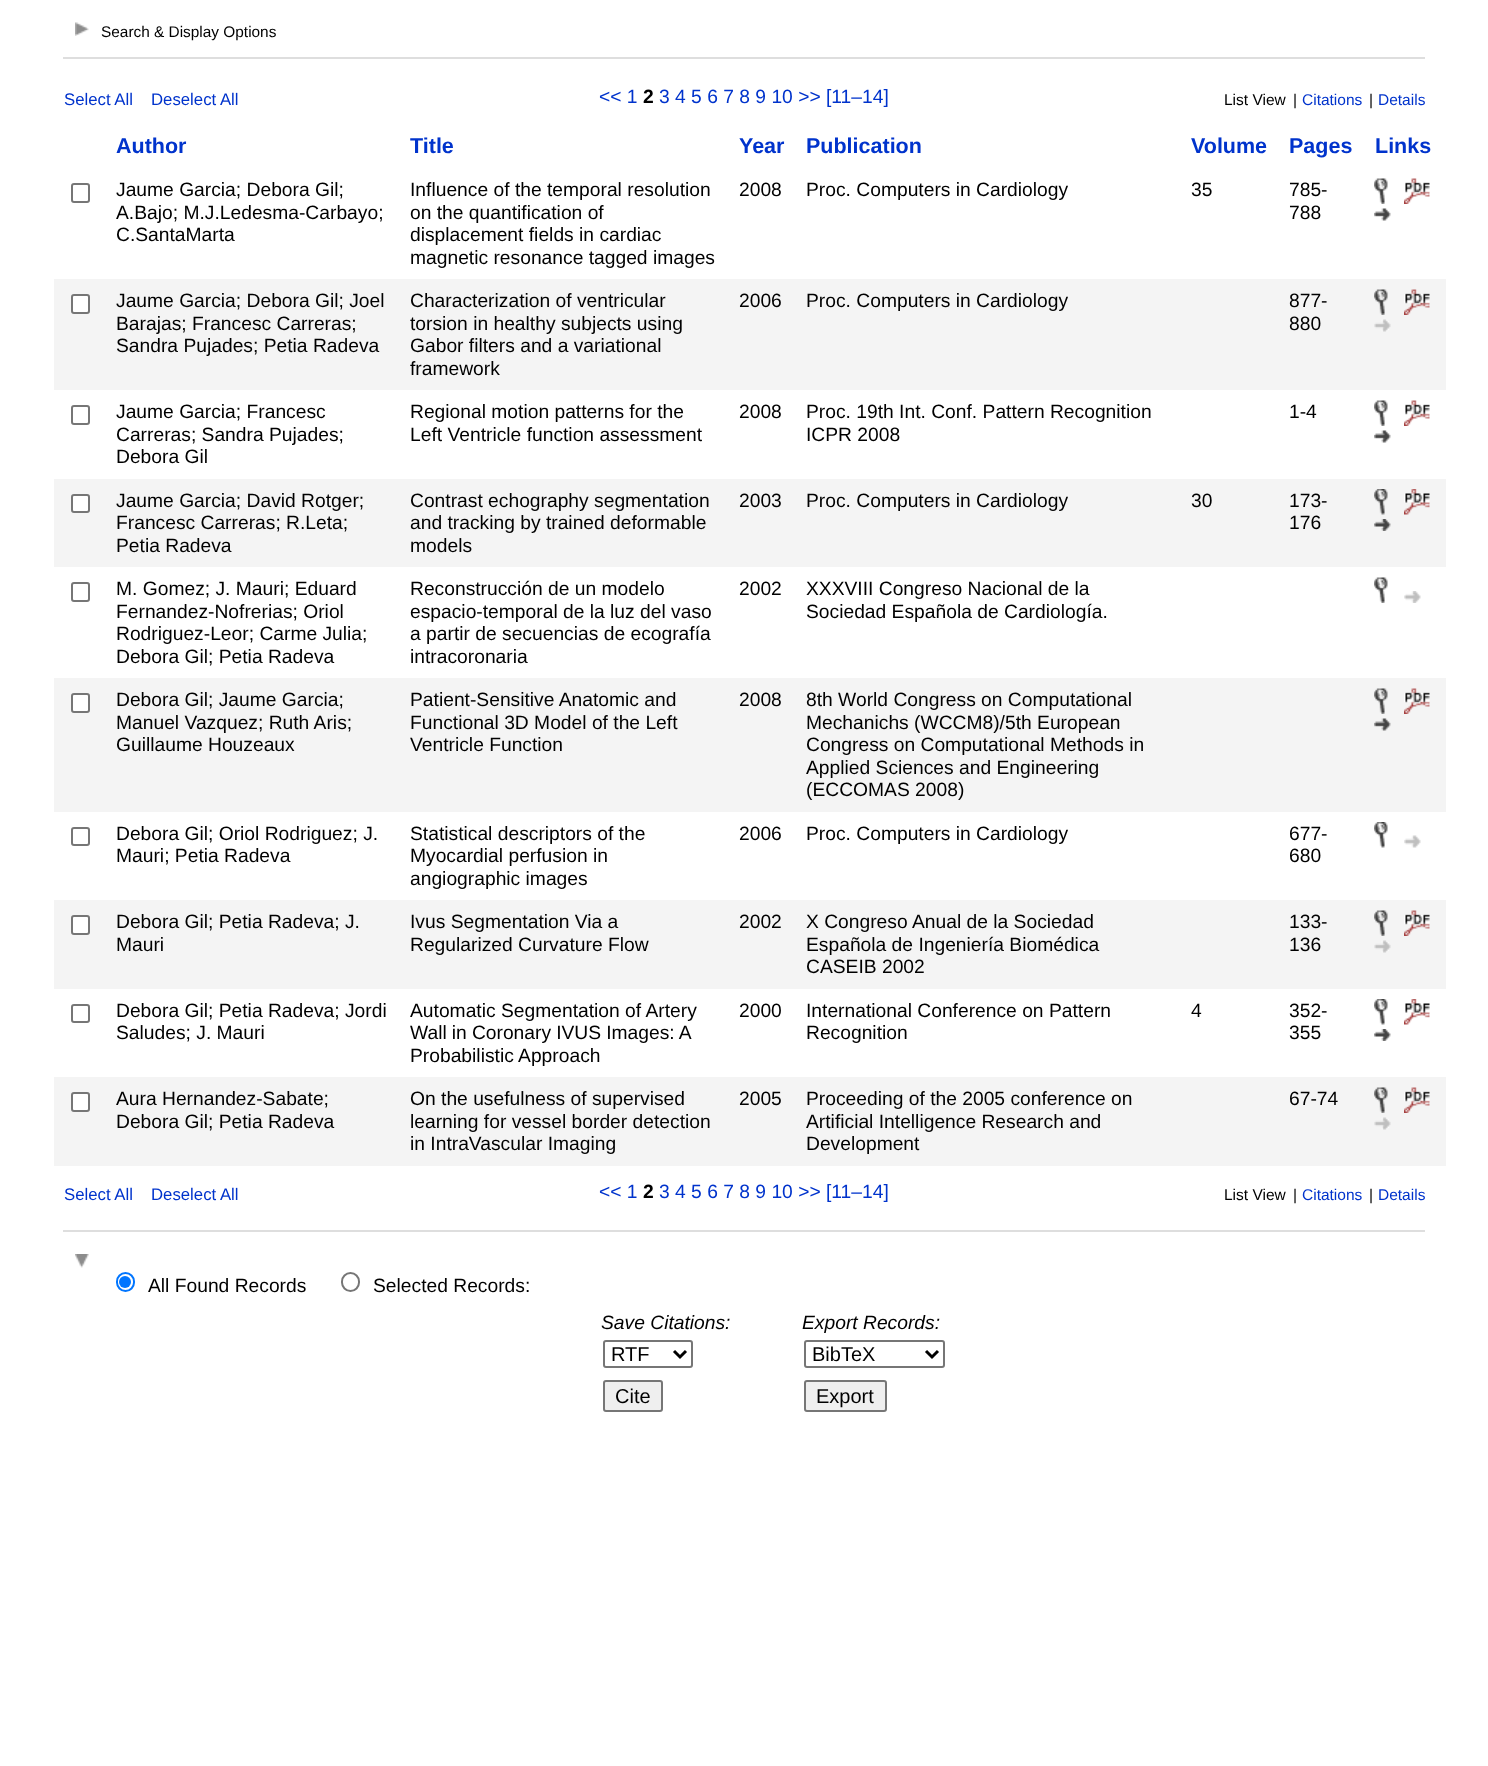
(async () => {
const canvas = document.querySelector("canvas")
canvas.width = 1488
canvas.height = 1766
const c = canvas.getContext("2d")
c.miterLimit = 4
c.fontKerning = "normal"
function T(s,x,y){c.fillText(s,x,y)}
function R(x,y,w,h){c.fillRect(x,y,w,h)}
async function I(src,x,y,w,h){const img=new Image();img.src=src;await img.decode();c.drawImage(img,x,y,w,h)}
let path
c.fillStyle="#fff"
R(0,0,1488,1766)
await I("1.png",75,22,14,14)
c.font="15.4px Liberation Sans"
c.fillStyle="#000"
T("Search & Display Options",101,37)
c.fillStyle="#dedede"
R(63,57,1362,2)
c.font="16.75px Liberation Sans"
c.fillStyle="#03c"
T("Select All",64,105)
T("Deselect All",151,105)
c.font="19.25px Liberation Sans"
T("<< 1",599,103)
c.font="bold 19.25px Liberation Sans"
c.fillStyle="#000"
T("2",643,103)
c.font="19.25px Liberation Sans"
c.fillStyle="#03c"
T("3 4 5 6 7 8 9 10 >> [11–14]",659,103)
c.font="15.5px Liberation Sans"
c.fillStyle="#000"
T("List View",1224,105)
T("|",1293,105)
c.fillStyle="#03c"
T("Citations",1302,105)
c.fillStyle="#000"
T("|",1369,105)
c.fillStyle="#03c"
T("Details",1378,105)
c.font="bold 21.5px Liberation Sans"
T("Author",116,153)
T("Title",410,153)
T("Year",739,153)
T("Publication",806,153)
T("Volume",1191,153)
T("Pages",1289,153)
T("Links",1375,153)
c.beginPath()
c.roundRect(72,184,17,18,2)
c.strokeStyle="#767676"
c.lineWidth=2
c.stroke()
c.font="19.25px Liberation Sans"
c.fillStyle="#000"
T("Jaume Garcia; Debora Gil;",116,196)
T("A.Bajo; M.J.Ledesma-Carbayo;",116,219)
T("C.SantaMarta",116,241)
T("Influence of the temporal resolution",410,196)
T("on the quantification of",410,219)
T("displacement fields in cardiac",410,241)
T("magnetic resonance tagged images",410,264)
T("2008",739,196)
T("Proc. Computers in Cardiology",806,196)
T("35",1191,196)
T("785-",1289,196)
T("788",1289,219)
await I("2.png",1374,178,14,26)
await I("3.png",1404,178,26,26)
await I("4.png",1374,208,17,13)
c.fillStyle="#f4f4f4"
R(54,279,1392,111)
c.fillStyle="#fff"
c.beginPath()
c.roundRect(72,295,17,18,2)
c.fill()
c.stroke()
c.fillStyle="#000"
T("Jaume Garcia; Debora Gil; Joel",116,307)
T("Barajas; Francesc Carreras;",116,330)
T("Sandra Pujades; Petia Radeva",116,352)
T("Characterization of ventricular",410,307)
T("torsion in healthy subjects using",410,330)
T("Gabor filters and a variational",410,352)
T("framework",410,375)
T("2006",739,307)
T("Proc. Computers in Cardiology",806,307)
T("877-",1289,307)
T("880",1289,330)
await I("5.png",1374,289,14,26)
await I("6.png",1404,289,26,26)
await I("7.png",1374,319,17,13)
c.beginPath()
c.roundRect(72,406,17,18,2)
c.stroke()
T("Jaume Garcia; Francesc",116,418)
T("Carreras; Sandra Pujades;",116,441)
T("Debora Gil",116,463)
T("Regional motion patterns for the",410,418)
T("Left Ventricle function assessment",410,441)
T("2008",739,418)
T("Proc. 19th Int. Conf. Pattern Recognition",806,418)
T("ICPR 2008",806,441)
T("1-4",1289,418)
await I("2.png",1374,400,14,26)
await I("3.png",1404,400,26,26)
await I("4.png",1374,430,17,13)
c.fillStyle="#f4f4f4"
R(54,479,1392,88)
c.fillStyle="#fff"
c.beginPath()
c.roundRect(72,495,17,17,2)
c.fill()
c.stroke()
c.fillStyle="#000"
T("Jaume Garcia; David Rotger;",116,507)
T("Francesc Carreras; R.Leta;",116,529)
T("Petia Radeva",116,552)
T("Contrast echography segmentation",410,507)
T("and tracking by trained deformable",410,529)
T("models",410,552)
T("2003",739,507)
T("Proc. Computers in Cardiology",806,507)
T("30",1191,507)
T("173-",1289,507)
T("176",1289,529)
await I("8.png",1374,489,14,26)
await I("9.png",1404,489,26,26)
await I("10.png",1374,519,17,12)
c.beginPath()
c.roundRect(72,583,17,18,2)
c.stroke()
T("M. Gomez; J. Mauri; Eduard",116,595)
T("Fernandez-Nofrerias; Oriol",116,618)
T("Rodriguez-Leor; Carme Julia;",116,640)
T("Debora Gil; Petia Radeva",116,663)
T("Reconstrucción de un modelo",410,595)
T("espacio-temporal de la luz del vaso",410,618)
T("a partir de secuencias de ecografía",410,640)
T("intracoronaria",410,663)
T("2002",739,595)
T("XXXVIII Congreso Nacional de la",806,595)
T("Sociedad Española de Cardiología.",806,618)
await I("2.png",1374,577,14,26)
await I("11.png",1404,591,17,12)
c.fillStyle="#f4f4f4"
R(54,678,1392,134)
c.fillStyle="#fff"
c.beginPath()
c.roundRect(72,694,17,18,2)
c.fill()
c.stroke()
c.fillStyle="#000"
T("Debora Gil; Jaume Garcia;",116,706)
T("Manuel Vazquez; Ruth Aris;",116,729)
T("Guillaume Houzeaux",116,751)
T("Patient-Sensitive Anatomic and",410,706)
T("Functional 3D Model of the Left",410,729)
T("Ventricle Function",410,751)
T("2008",739,706)
T("8th World Congress on Computational",806,706)
T("Mechanichs (WCCM8)/5th European",806,729)
T("Congress on Computational Methods in",806,751)
T("Applied Sciences and Engineering",806,774)
T("(ECCOMAS 2008)",806,796)
await I("5.png",1374,688,14,26)
await I("6.png",1404,688,26,26)
await I("12.png",1374,718,17,13)
c.beginPath()
c.roundRect(72,828,17,17,2)
c.stroke()
T("Debora Gil; Oriol Rodriguez; J.",116,840)
T("Mauri; Petia Radeva",116,862)
T("Statistical descriptors of the",410,840)
T("Myocardial perfusion in",410,862)
T("angiographic images",410,885)
T("2006",739,840)
T("Proc. Computers in Cardiology",806,840)
T("677-",1289,840)
T("680",1289,862)
await I("13.png",1374,822,14,26)
await I("14.png",1404,835,17,13)
c.fillStyle="#f4f4f4"
R(54,900,1392,89)
c.fillStyle="#fff"
c.beginPath()
c.roundRect(72,916,17,18,2)
c.fill()
c.stroke()
c.fillStyle="#000"
T("Debora Gil; Petia Radeva; J.",116,928)
T("Mauri",116,951)
T("Ivus Segmentation Via a",410,928)
T("Regularized Curvature Flow",410,951)
T("2002",739,928)
T("X Congreso Anual de la Sociedad",806,928)
T("Española de Ingeniería Biomédica",806,951)
T("CASEIB 2002",806,973)
T("133-",1289,928)
T("136",1289,951)
await I("5.png",1374,910,14,26)
await I("6.png",1404,910,26,26)
await I("7.png",1374,940,17,13)
c.beginPath()
c.roundRect(72,1005,17,17,2)
c.stroke()
T("Debora Gil; Petia Radeva; Jordi",116,1017)
T("Saludes; J. Mauri",116,1039)
T("Automatic Segmentation of Artery",410,1017)
c.wordSpacing="-0.25px"
T("Wall in Coronary IVUS Images: A",410,1039)
c.wordSpacing="0px"
T("Probabilistic Approach",410,1062)
T("2000",739,1017)
T("International Conference on Pattern",806,1017)
T("Recognition",806,1039)
T("4",1191,1017)
T("352-",1289,1017)
T("355",1289,1039)
await I("13.png",1374,999,14,26)
await I("15.png",1404,999,26,26)
await I("16.png",1374,1029,17,12)
c.fillStyle="#f4f4f4"
R(54,1077,1392,89)
c.fillStyle="#fff"
c.beginPath()
c.roundRect(72,1093,17,18,2)
c.fill()
c.stroke()
c.fillStyle="#000"
T("Aura Hernandez-Sabate;",116,1105)
T("Debora Gil; Petia Radeva",116,1128)
T("On the usefulness of supervised",410,1105)
T("learning for vessel border detection",410,1128)
T("in IntraVascular Imaging",410,1150)
T("2005",739,1105)
T("Proceeding of the 2005 conference on",806,1105)
T("Artificial Intelligence Research and",806,1128)
T("Development",806,1150)
T("67-74",1289,1105)
await I("5.png",1374,1087,14,26)
await I("6.png",1404,1087,26,26)
await I("7.png",1374,1117,17,13)
c.font="16.75px Liberation Sans"
c.fillStyle="#03c"
T("Select All",64,1200)
T("Deselect All",151,1200)
c.font="19.25px Liberation Sans"
T("<< 1",599,1198)
c.font="bold 19.25px Liberation Sans"
c.fillStyle="#000"
T("2",643,1198)
c.font="19.25px Liberation Sans"
c.fillStyle="#03c"
T("3 4 5 6 7 8 9 10 >> [11–14]",659,1198)
c.font="15.5px Liberation Sans"
c.fillStyle="#000"
T("List View",1224,1200)
T("|",1293,1200)
c.fillStyle="#03c"
T("Citations",1302,1200)
c.fillStyle="#000"
T("|",1369,1200)
c.fillStyle="#03c"
T("Details",1378,1200)
c.fillStyle="#dedede"
R(63,1230,1362,2)
await I("17.png",75,1254,14,14)
c.beginPath()
c.roundRect(117,1273,17,18,8.5)
c.strokeStyle="#0075ff"
c.stroke()
c.fillStyle="#0075ff"
c.beginPath()
c.arc(125,1282,6,0,7)
c.fill()
c.font="19.25px Liberation Sans"
c.fillStyle="#000"
T("All Found Records",148,1292)
c.beginPath()
c.roundRect(342,1273,17,18,8.5)
c.strokeStyle="#767676"
c.stroke()
T("Selected Records:",373,1292)
c.font="italic 19.25px Liberation Sans"
T("Save Citations:",601,1329)
c.beginPath()
c.roundRect(604,1341,88,26,2)
c.stroke()
path = new Path2D("M674 1351l6 6l6-6")
c.strokeStyle="#000"
c.lineWidth=3
c.stroke(path)
c.font="20px Liberation Sans"
T("RTF",611,1361)
c.fillStyle="#efefef"
c.beginPath()
c.roundRect(604,1381,58,30,2)
c.fill()
c.strokeStyle="#767676"
c.lineWidth=2
c.stroke()
c.fillStyle="#000"
T("Cite",615,1403)
c.font="italic 19.25px Liberation Sans"
T("Export Records:",802,1329)
c.beginPath()
c.roundRect(805,1341,139,26,2)
c.stroke()
path = new Path2D("M926 1351l6 6l6-6")
c.strokeStyle="#000"
c.lineWidth=3
c.stroke(path)
c.font="20px Liberation Sans"
T("BibTeX",812,1361)
c.fillStyle="#efefef"
c.beginPath()
c.roundRect(805,1381,81,30,2)
c.fill()
c.strokeStyle="#767676"
c.lineWidth=2
c.stroke()
c.fillStyle="#000"
T("Export",816,1403)
})()
